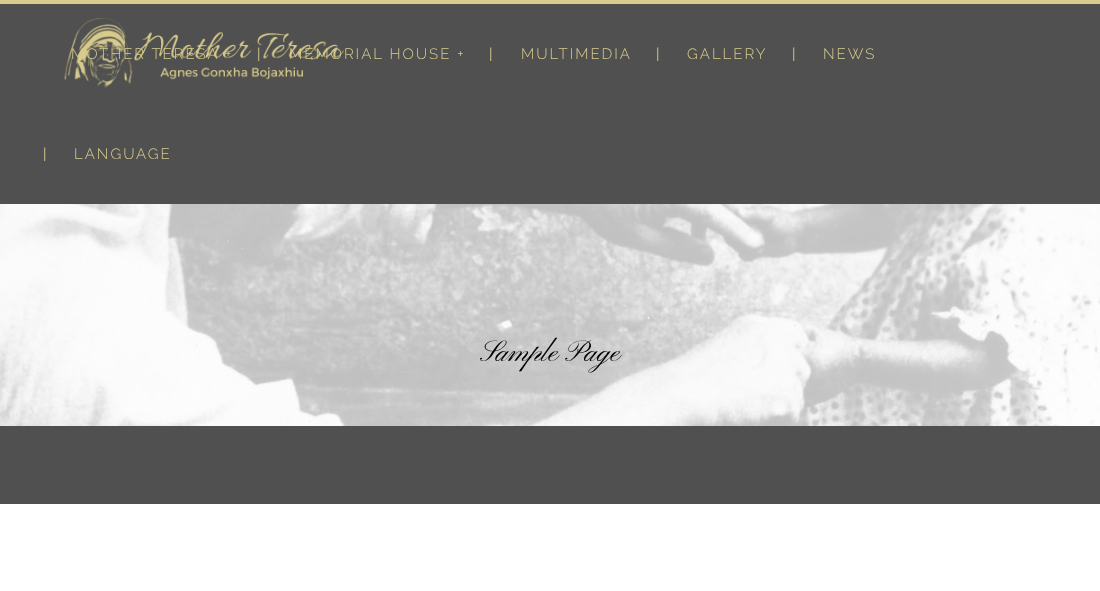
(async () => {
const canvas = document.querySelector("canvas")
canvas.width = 1100
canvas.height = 591
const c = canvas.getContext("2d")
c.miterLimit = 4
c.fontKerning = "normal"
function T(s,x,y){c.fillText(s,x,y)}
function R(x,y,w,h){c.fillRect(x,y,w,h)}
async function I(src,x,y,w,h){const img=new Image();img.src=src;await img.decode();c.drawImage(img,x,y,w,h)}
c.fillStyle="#fff"
R(0,0,1100,591)
c.fillStyle="#d9cd8e"
R(0,0,1100,4)
c.fillStyle="#505050"
R(0,4,1100,200)
await I("1.png",64,18,281,70)
c.letterSpacing="2px"
c.font="300 15px Raleway"
c.fillStyle="#d9cd8e"
T("MOTHER TERESA +",71,59)
c.letterSpacing="0px"
c.font="15px Raleway"
T("|",257,59)
c.letterSpacing="2px"
c.font="300 15px Raleway"
T("MEMORIAL HOUSE +",289,59)
c.letterSpacing="0px"
c.font="15px Raleway"
T("|",489,59)
c.letterSpacing="2px"
c.font="300 15px Raleway"
T("MULTIMEDIA",521,59)
c.letterSpacing="0px"
c.font="15px Raleway"
T("|",656,59)
c.letterSpacing="2px"
c.font="300 15px Raleway"
T("GALLERY",687,59)
c.letterSpacing="0px"
c.font="15px Raleway"
T("|",792,59)
c.letterSpacing="2px"
c.font="300 15px Raleway"
T("NEWS",823,59)
c.letterSpacing="0px"
c.font="15px Raleway"
T("|",43,159)
c.letterSpacing="2px"
c.font="300 15px Raleway"
T("LANGUAGE",74,159)
c.fillStyle="#505050"
R(0,426,1100,78)
await I("2.png",0,204,1100,222)
c.letterSpacing="0px"
c.font="30px Pinyon Script"
c.fillStyle="#000"
T("Sample Page",480,361)
})()
